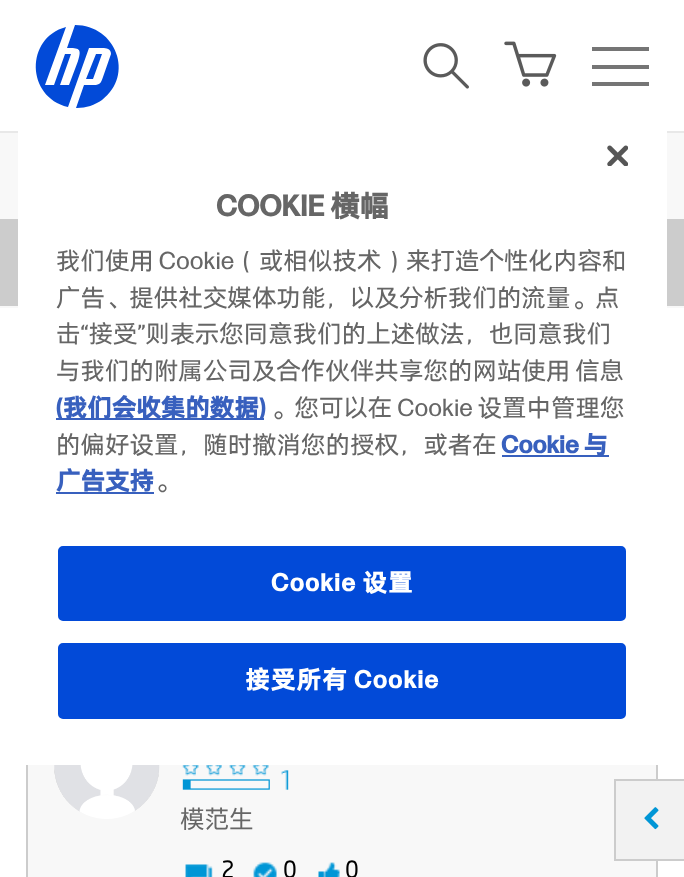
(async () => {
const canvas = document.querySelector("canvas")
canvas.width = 684
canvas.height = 877
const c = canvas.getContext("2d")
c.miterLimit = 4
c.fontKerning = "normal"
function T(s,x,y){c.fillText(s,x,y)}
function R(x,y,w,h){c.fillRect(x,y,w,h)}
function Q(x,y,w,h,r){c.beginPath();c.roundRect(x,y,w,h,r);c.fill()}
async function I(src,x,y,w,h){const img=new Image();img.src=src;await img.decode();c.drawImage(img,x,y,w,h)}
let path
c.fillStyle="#fff"
R(0,0,684,877)
c.fillStyle="#e8e8e8"
R(0,131,684,2)
c.fillStyle="#f8f8f8"
R(0,133,684,175)
c.fillStyle="#ccc"
R(0,219,684,87)
c.strokeStyle="#ccc"
c.lineWidth=2
c.strokeRect(27,687,630,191)
c.fillStyle="#fff"
Q(18,114,649,651,4)
await I("1.png",607,145,21,21)
c.font="bold 29.5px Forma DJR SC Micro"
c.fillStyle="#666"
T("COOKIE 横幅",216,216)
c.font="24.5px Forma DJR SC Micro"
T("我们使用 Cookie（或相似技术）来打造个性化内容和",56,269)
T("广告、提供社交媒体功能，以及分析我们的流量。点",56,306)
T("击“接受”则表示您同意我们的上述做法，也同意我们",56,342)
T("与我们的附属公司及合作伙伴共享您的网站使用 信息",56,379)
c.fillStyle="#3860be"
R(56,418,208,2)
c.font="bold 24.5px Forma DJR SC Micro"
T("(我们会收集的数据)",56,416)
c.font="24.5px Forma DJR SC Micro"
c.fillStyle="#666"
T("。您可以在 Cookie 设置中管理您",270,416)
T("的偏好设置，随时撤消您的授权，或者在",56,453)
c.fillStyle="#3860be"
R(502,455,107,2)
c.font="bold 24.5px Forma DJR SC Micro"
T("Cookie 与",501,453)
R(56,492,98,2)
T("广告支持",56,489)
c.font="24.5px Forma DJR SC Micro"
c.fillStyle="#666"
T("。",154,489)
c.fillStyle="#024ad8"
c.beginPath()
c.roundRect(57,545,570,77,6)
c.fill()
c.strokeStyle="#fff"
c.stroke()
c.letterSpacing="1.25px"
c.font="bold 24.5px Forma DJR SC Micro"
c.fillStyle="#fff"
T("Cookie 设置",271,591)
c.fillStyle="#024ad8"
c.beginPath()
c.roundRect(57,642,570,78,6)
c.fill()
c.stroke()
c.fillStyle="#fff"
T("接受所有 Cookie",245,688)
c.fillStyle="#024ad8"
path = new Path2D("M77 108h-1l8-23h10c6 0 7-2 9-8l8-23c0-7-8-6-11-6h-11l-21 59c-42-10-43-69-2-80l-21 58h9l11-31h6l-11 31h9l9-24c4-13 1-13-11-13l8-23c41 0 60 50 27 75c-7 5-16 8-25 8zm25-54h-6l-10 25h7z")
c.fill(path)
await I("2.png",423,43,46,46)
await I("3.png",504,41,53,46)
c.fillStyle="#757575"
R(592,65,57,4)
R(592,47,57,4)
R(592,82,57,4)
c.fillStyle="#f8f8f8"
R(28,765,628,112)
c.fillStyle="#f2f2f2"
R(616,781,68,78)
c.fillStyle="#ccc"
R(614,779,70,2)
R(614,859,70,2)
R(614,779,2,82)
await I("4.png",644,807,15,23)
await I("5.png",54,765,106,54)
await I("6.png",182,765,107,25)
c.letterSpacing="0px"
c.font="24.5px Noto Sans CJK SC"
c.fillStyle="#666"
T("模范生",180,828)
await I("7.png",185,864,28,13)
c.font="bold 24.5px 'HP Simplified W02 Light'"
c.fillStyle="#000"
T("2",221,878)
await I("8.png",253,862,24,15)
T("0",283,878)
await I("9.png",318,862,22,15)
T("0",345,878)
})()
